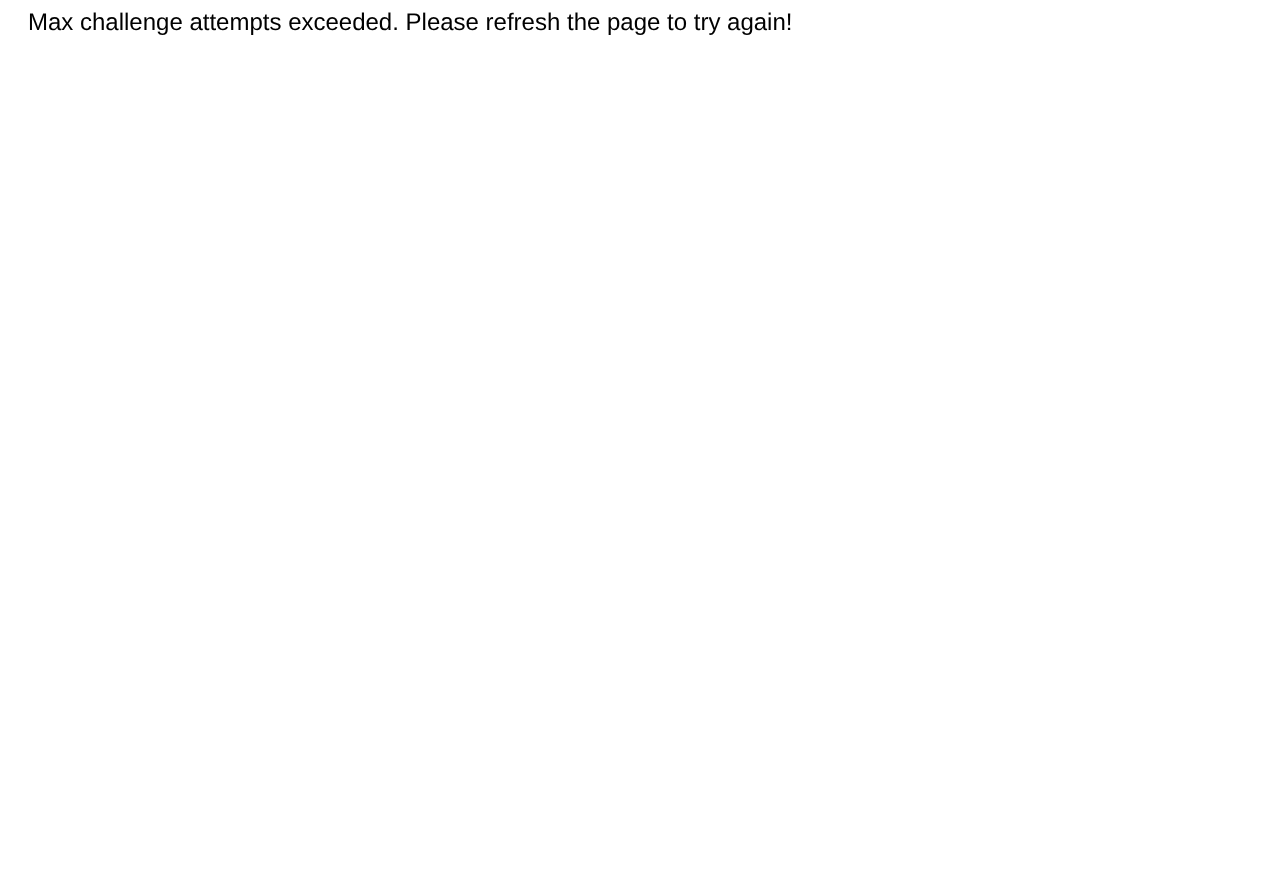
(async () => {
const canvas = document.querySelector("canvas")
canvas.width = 1285
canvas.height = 877
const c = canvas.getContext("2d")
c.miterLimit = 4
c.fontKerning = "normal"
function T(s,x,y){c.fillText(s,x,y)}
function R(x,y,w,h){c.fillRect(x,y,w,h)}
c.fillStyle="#fff"
R(0,0,1285,877)
c.font="24px Liberation Sans"
c.fillStyle="#000"
T("Max challenge attempts exceeded. Please refresh the page to try again!",28,30)
})()
